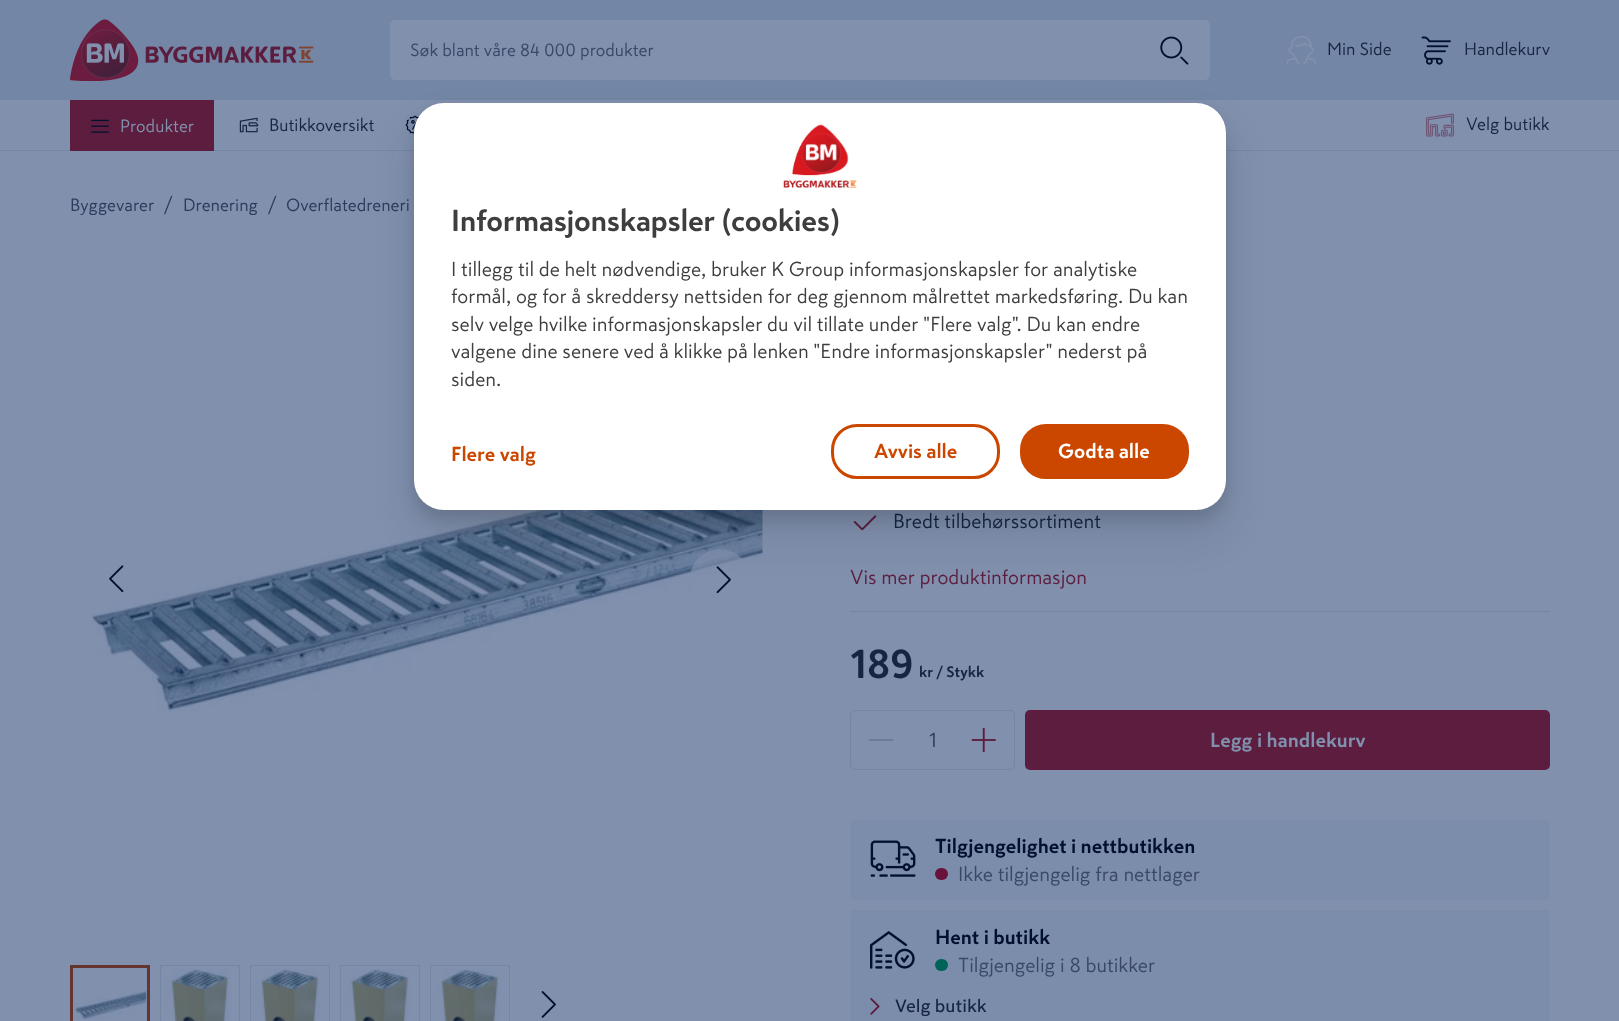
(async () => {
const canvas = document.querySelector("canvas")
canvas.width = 1619
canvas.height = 1021
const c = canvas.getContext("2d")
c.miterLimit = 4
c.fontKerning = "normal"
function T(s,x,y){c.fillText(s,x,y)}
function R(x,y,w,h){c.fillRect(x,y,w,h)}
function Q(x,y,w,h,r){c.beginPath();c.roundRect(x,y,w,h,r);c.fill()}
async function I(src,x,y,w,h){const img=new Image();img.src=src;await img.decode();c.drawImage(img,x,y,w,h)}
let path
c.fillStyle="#8090ad"
R(0,0,1619,1021)
c.fillStyle="#7386a5"
R(0,0,1619,100)
await I("1.png",70,19,244,62)
c.fillStyle="#8090ad"
c.beginPath()
c.roundRect(390,20,749,60,[5,0,0,5])
c.fill()
c.font="17.5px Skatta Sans"
c.fillStyle="#384866"
T("Søk blant våre 84 000 produkter",410,56)
c.fillStyle="#8090ad"
c.beginPath()
c.roundRect(1139,20,71,60,[0,5,5,0])
c.fill()
await I("2.png",1160,36,29,29)
await I("3.png",1286,36,30,29)
c.fillStyle="#152542"
T("Min Side",1327,55)
await I("4.png",1421,36,30,29)
T("Handlekurv",1464,55)
c.fillStyle="#7585a3"
R(0,150,1619,1)
c.fillStyle="#5c1d3e"
R(70,100,144,51)
await I("5.png",91,119,18,14)
c.fillStyle="#8090ad"
T("Produkter",120,132)
await I("6.png",239,117,20,16)
c.fillStyle="#152542"
T("Butikkoversikt",269,131)
await I("7.png",405,115,15,19)
await I("8.png",1426,113,28,24)
T("Velg butikk",1466,130)
c.fillStyle="#2a3c5b"
T("Byggevarer",70,211)
c.font="20px Skatta Sans"
T("/",164,211)
c.font="17.5px Skatta Sans"
T("Drenering",183,211)
c.font="20px Skatta Sans"
T("/",268,211)
c.font="17.5px Skatta Sans"
T("Overflatedreneri",286,211)
await I("9.png",92,456,671,256)
await I("10.png",109,565,15,28)
c.fillStyle="#8090adb3"
c.beginPath()
c.arc(720,579,30,0,7)
c.fill()
await I("11.png",716,566,15,28)
c.strokeStyle="#66342e"
c.lineWidth=3
c.strokeRect(71.5,966.5,77,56)
await I("12.png",74,991,73,28)
c.strokeStyle="#7585a3"
c.lineWidth=1
c.strokeRect(160.5,965.5,79,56)
await I("13.png",164,969,67,52)
c.strokeRect(250.5,965.5,79,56)
await I("13.png",254,969,67,52)
c.strokeRect(340.5,965.5,79,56)
await I("14.png",344,969,67,52)
c.strokeRect(430.5,965.5,79,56)
await I("13.png",434,969,67,52)
await I("15.png",541,991,15,27)
await I("16.png",853,515,24,16)
c.font="20px Skatta Sans"
c.fillStyle="#152542"
T("Bredt tilbehørssortiment",893,528)
c.fillStyle="#5c1d3e"
T("Vis mer produktinformasjon",850,584)
c.fillStyle="#7484a1"
R(850,611,700,1)
c.font="bold 40px Skatta Sans"
c.fillStyle="#152542"
T("189",850,678)
c.font="bold 15px Skatta Sans"
T("kr / Stykk",919,677)
c.beginPath()
c.roundRect(850.5,710.5,164,59,4.5)
c.strokeStyle="#7484a1"
c.stroke()
c.fillStyle="#6c7b99"
path = new Path2D("M870 741c-1 0-1.5-1.5-.5-2h19.5c2 0 5-.5 4.5 1l-.5 1z")
c.fill(path)
c.font="20px Skatta Sans"
c.fillStyle="#2a3c5b"
T("1",929,747)
await I("17.png",971,727,25,26)
c.fillStyle="#5c1d3e"
Q(1025,710,525,60,5)
c.font="bold 20px Skatta Sans"
c.fillStyle="#8090ad"
T("Legg i handlekurv",1210,747)
c.fillStyle="#7c8dab"
Q(850,820,700,80,5)
await I("18.png",870,840,46,37)
c.fillStyle="#00102e"
T("Tilgjengelighet i nettbutikken",935,853)
c.fillStyle="#68113b"
Q(935,868,13,12,6)
c.font="20px Skatta Sans"
c.fillStyle="#384866"
T("Ikke tilgjengelig fra nettlager",958,881)
c.fillStyle="#7c8dab"
Q(850,910,700,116,5)
await I("19.png",870,931,45,38)
c.font="bold 20px Skatta Sans"
c.fillStyle="#00102e"
T("Hent i butikk",935,944)
c.fillStyle="#006357"
Q(935,959,13,12,6)
c.font="20px Skatta Sans"
c.fillStyle="#384866"
T("Tilgjengelig i 8 butikker",958,972)
await I("20.png",870,998,10,17)
c.font="500 17.5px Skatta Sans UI"
c.fillStyle="#152542"
T("Velg butikk",895,1012)
c.fillStyle="#00000014"
c.filter="blur(20px)"
c.beginPath()
c.roundRect(411,125,818,413,33)
c.fill()
c.filter="none"
c.fillStyle="#0000001f"
c.filter="blur(7.5px)"
c.beginPath()
c.roundRect(414,113,812,407,30)
c.fill()
c.filter="none"
c.fillStyle="#fff"
Q(414,103,812,407,30)
await I("21.png",783,124,74,64)
c.letterSpacing="-0.3px"
c.font="bold 30px Skatta Sans"
c.fillStyle="#3e3e3e"
T("Informasjonskapsler (cookies)",451,231)
c.letterSpacing="0px"
c.font="20px Skatta Sans"
T("I tillegg til de helt nødvendige, bruker K Group informasjonskapsler for analytiske",451,276)
T("formål, og for å skreddersy nettsiden for deg gjennom målrettet markedsføring. Du kan",451,303)
T("selv velge hvilke informasjonskapsler du vil tillate under \"Flere valg\". Du kan endre",451,331)
T("valgene dine senere ved å klikke på lenken \"Endre informasjonskapsler\" nederst på",451,358)
T("siden.",451,386)
c.font="bold 20px Skatta Sans"
c.fillStyle="#cb4700"
T("Flere valg",451,461)
c.beginPath()
c.roundRect(832.5,425.5,166,52,24.5)
c.strokeStyle="#cb4700"
c.lineWidth=3
c.stroke()
T("Avvis alle",874,458)
c.beginPath()
c.roundRect(1021.5,425.5,166,52,24.5)
c.fill()
c.stroke()
c.fillStyle="#fff"
T("Godta alle",1058,458)
})()
